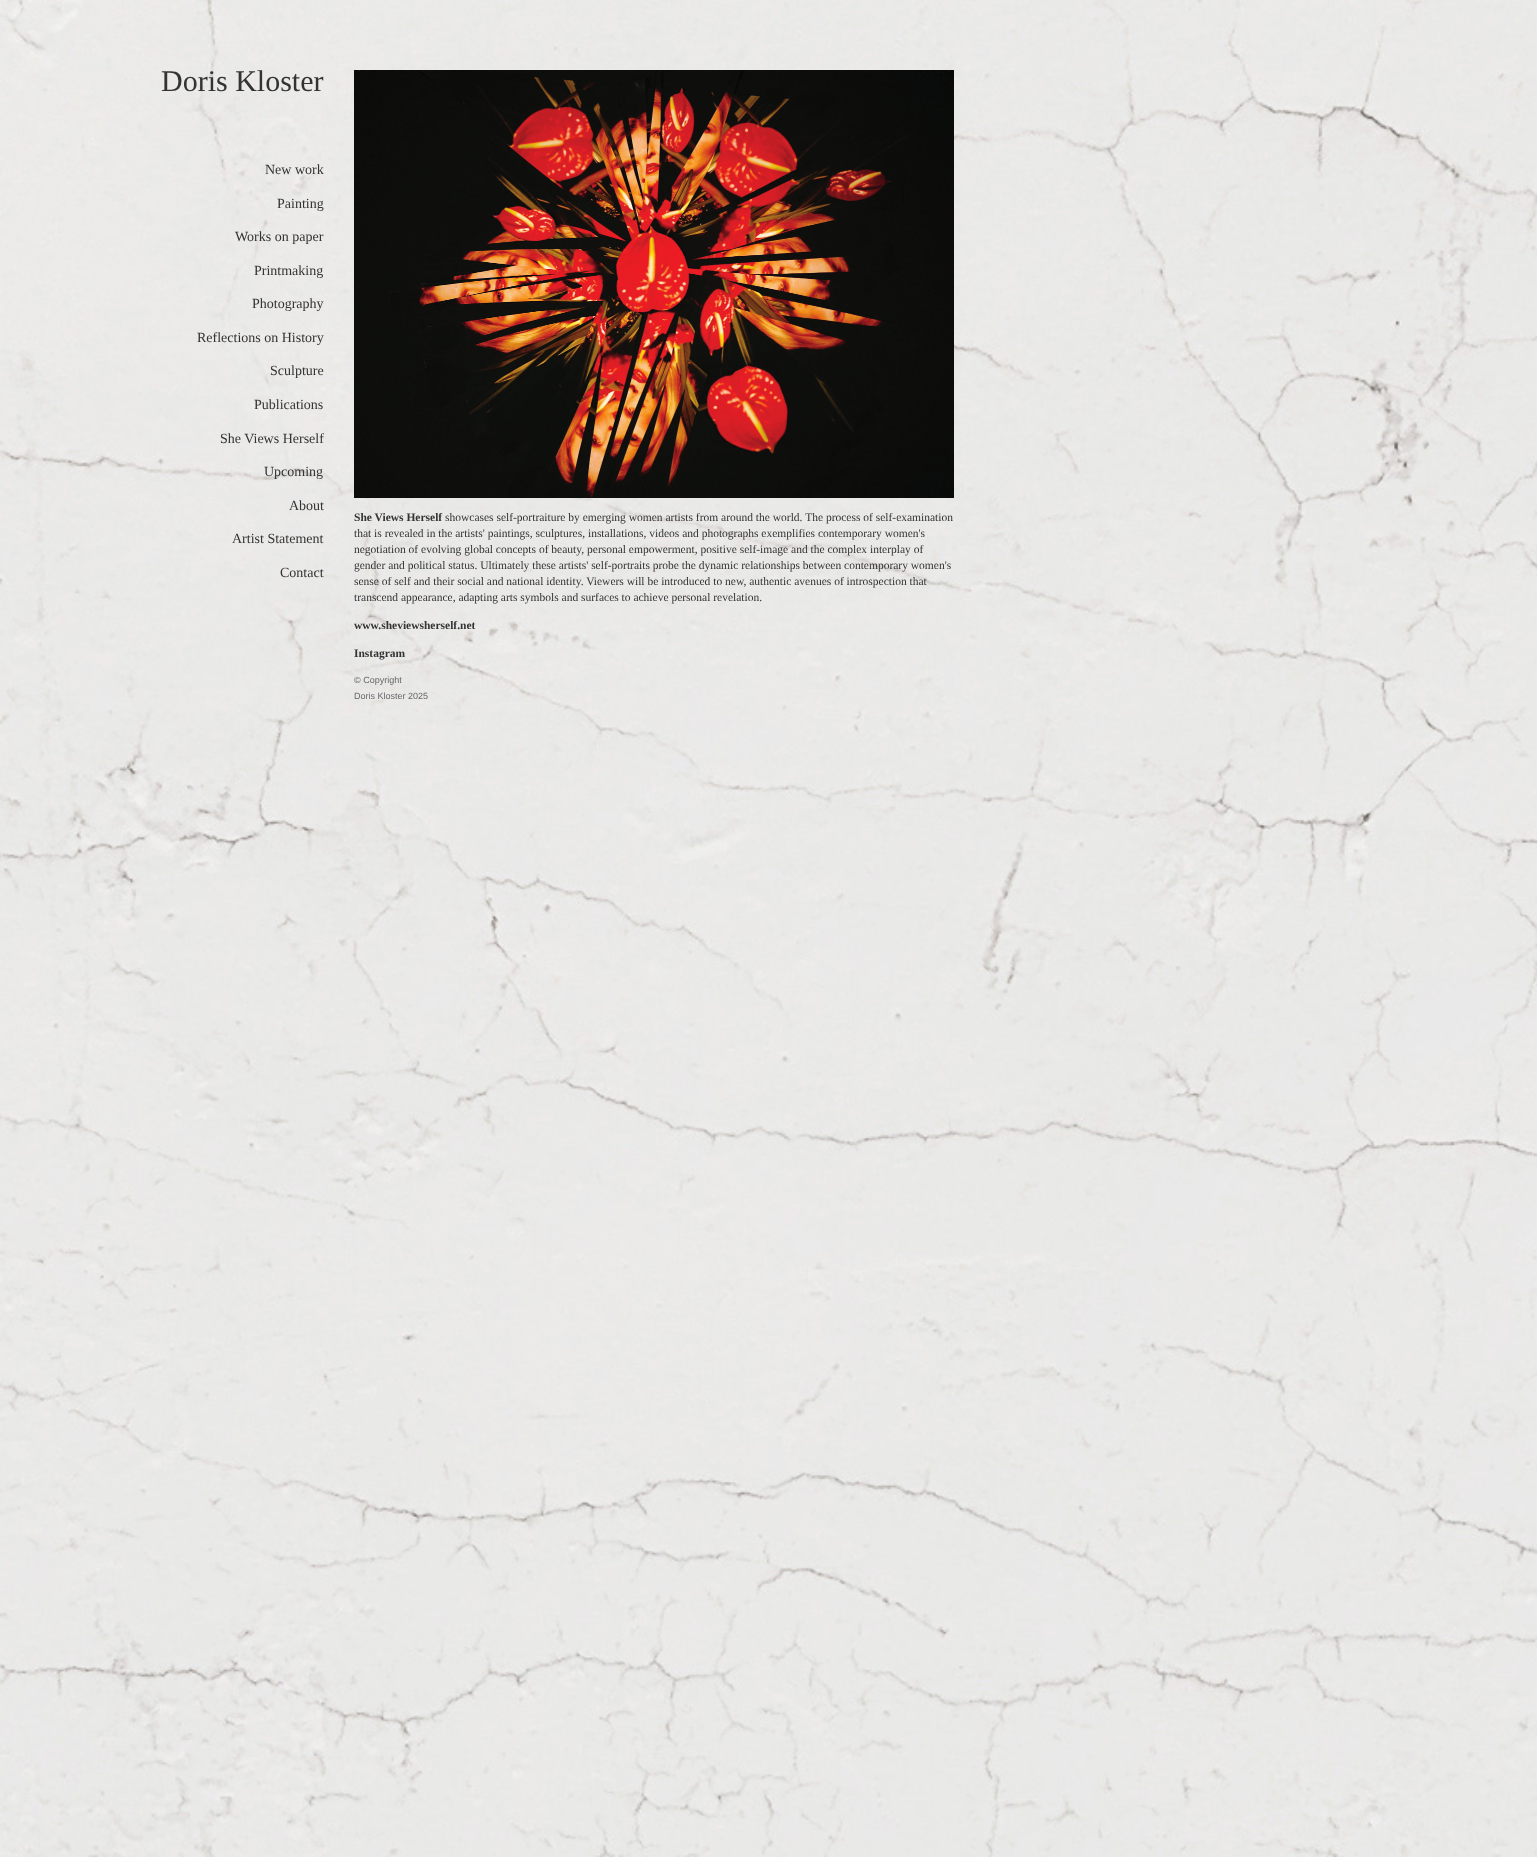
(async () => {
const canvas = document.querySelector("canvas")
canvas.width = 1537
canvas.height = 1857
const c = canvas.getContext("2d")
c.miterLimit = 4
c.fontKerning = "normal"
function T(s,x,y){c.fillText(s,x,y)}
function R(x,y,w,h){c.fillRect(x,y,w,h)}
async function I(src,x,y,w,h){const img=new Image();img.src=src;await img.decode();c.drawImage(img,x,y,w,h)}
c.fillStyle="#fff"
R(0,0,1537,1857)
await I("1.png",0,0,1537,1857)
c.font="30px Liberation Serif"
c.fillStyle="#333"
T("Doris Kloster",161,91)
c.font="14px Liberation Serif"
T("New work",265,174)
T("Painting",277,208)
T("Works on paper",235,241)
T("Printmaking",254,275)
T("Photography",252,308)
T("Reflections on History",197,342)
T("Sculpture",270,375)
T("Publications",254,409)
T("She Views Herself",220,443)
T("Upcoming",264,476)
T("About",289,510)
T("Artist Statement",232,543)
T("Contact",280,577)
await I("2.png",354,70,600,428)
c.font="bold 11.5px Liberation Serif"
T("She Views Herself",354,521)
c.font="11.5px Liberation Serif"
T("showcases self-portraiture by emerging women artists from around the world. The process of self-examination",445,521)
T("that is revealed in the artists' paintings, sculptures, installations, videos and photographs exemplifies contemporary women's",354,537)
T("negotiation of evolving global concepts of beauty, personal empowerment, positive self-image and the complex interplay of",354,553)
T("gender and political status. Ultimately these artists' self-portraits probe the dynamic relationships between contemporary women's",354,569)
T("sense of self and their social and national identity. Viewers will be introduced to new, authentic avenues of introspection that",354,585)
T("transcend appearance, adapting arts symbols and surfaces to achieve personal revelation.",354,601)
c.font="bold 11.5px Liberation Serif"
T("www.sheviewsherself.net",354,629)
T("Instagram",354,657)
c.font="9px Liberation Sans"
c.fillStyle="#666"
T("© Copyright",354,683)
T("Doris Kloster 2025",354,699)
})()
